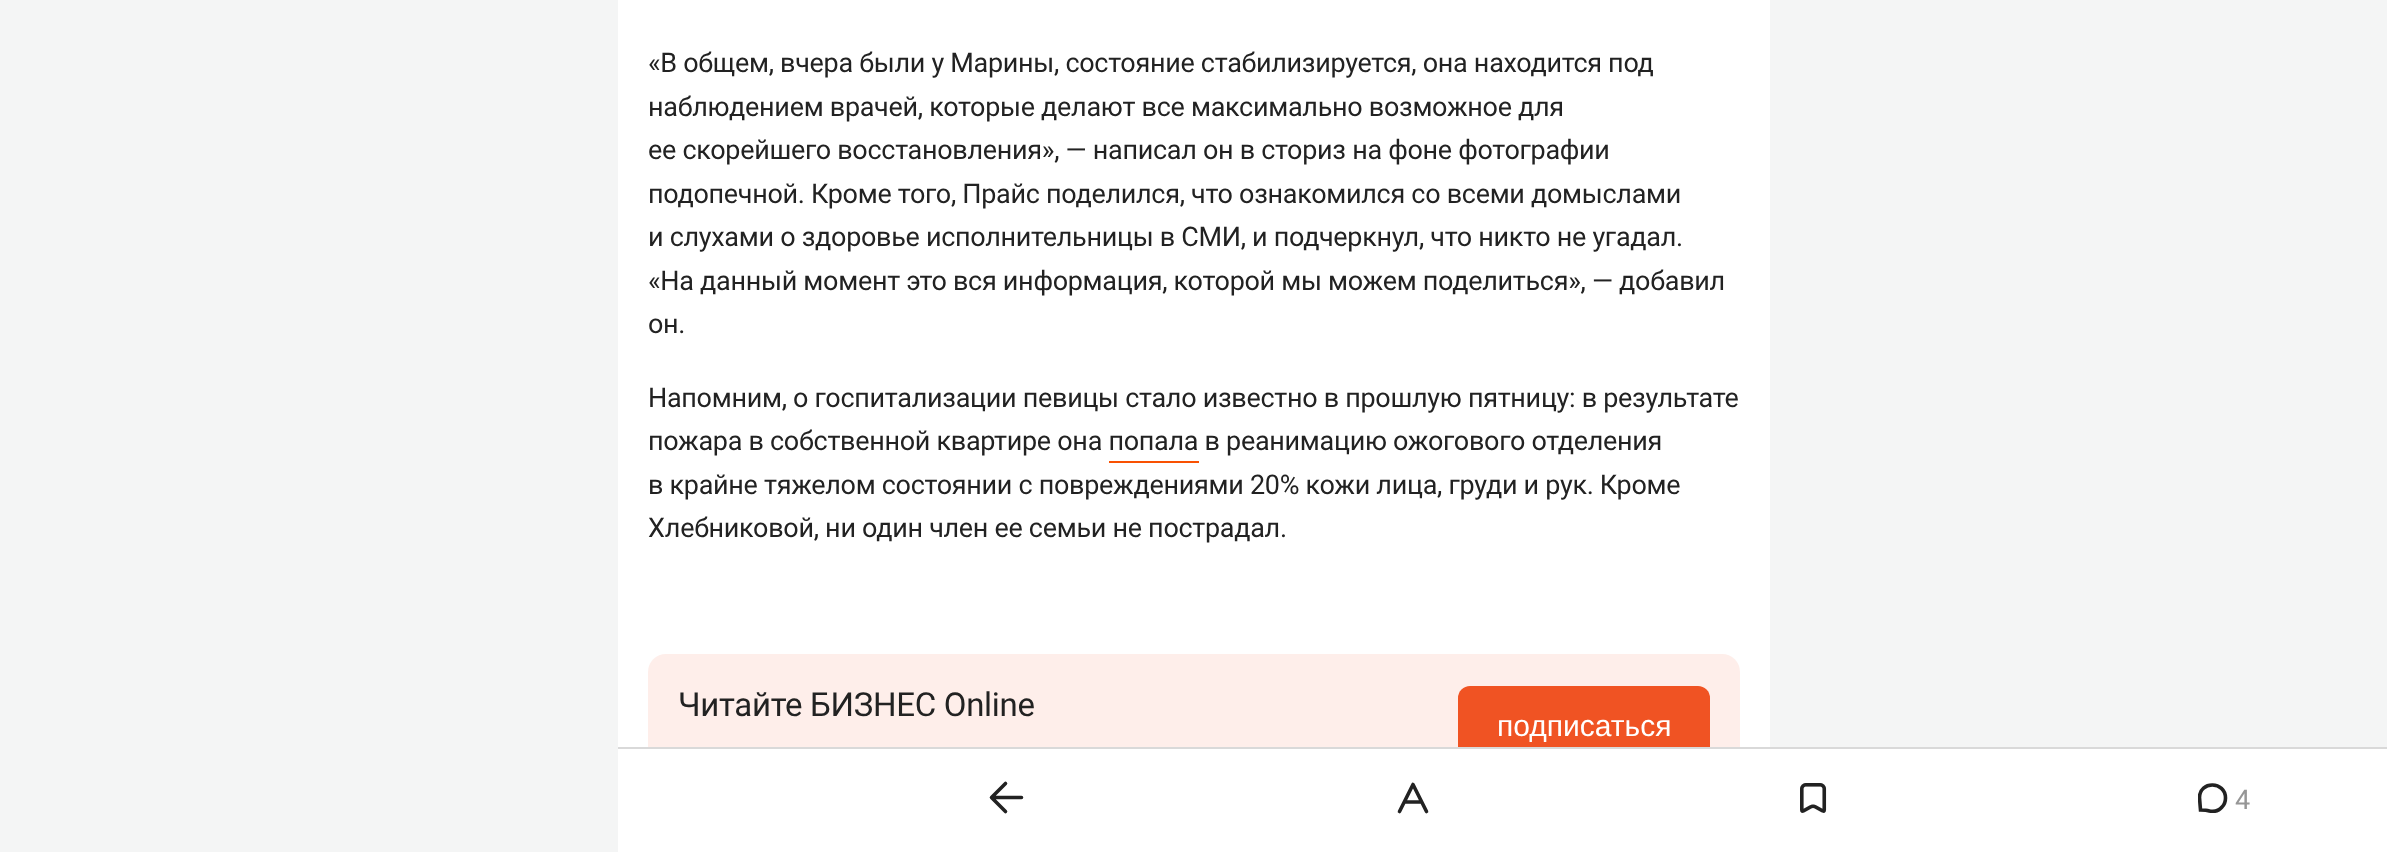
(async () => {
const canvas = document.querySelector("canvas")
canvas.width = 2387
canvas.height = 852
const c = canvas.getContext("2d")
c.miterLimit = 4
c.fontKerning = "normal"
function T(s,x,y){c.fillText(s,x,y)}
function R(x,y,w,h){c.fillRect(x,y,w,h)}
function Q(x,y,w,h,r){c.beginPath();c.roundRect(x,y,w,h,r);c.fill()}
async function I(src,x,y,w,h){const img=new Image();img.src=src;await img.decode();c.drawImage(img,x,y,w,h)}
let path
c.fillStyle="#f4f5f5"
R(0,0,2387,852)
c.fillStyle="#fff"
R(618,0,1152,747)
c.letterSpacing="-0.3px"
c.font="27px Roboto"
c.fillStyle="#222"
T("«В общем, вчера были у Марины, состояние стабилизируется, она находится под",648,72)
T("наблюдением врачей, которые делают все максимально возможное для",648,116)
T("ее скорейшего восстановления», — написал он в сториз на фоне фотографии",648,159)
T("подопечной. Кроме того, Прайс поделился, что ознакомился со всеми домыслами",648,203)
T("и слухами о здоровье исполнительницы в СМИ, и подчеркнул, что никто не угадал.",648,246)
T("«На данный момент это вся информация, которой мы можем поделиться», — добавил",648,290)
T("он.",648,333)
T("Напомним, о госпитализации певицы стало известно в прошлую пятницу: в результате",648,407)
T("пожара в собственной квартире она попала в реанимацию ожогового отделения",648,450)
c.fillStyle="#f95102"
R(1109,461,90,2)
c.fillStyle="#222"
T("в крайне тяжелом состоянии с повреждениями 20% кожи лица, груди и рук. Кроме",648,494)
T("Хлебниковой, ни один член ее семьи не пострадал.",648,537)
c.fillStyle="#feeeea"
Q(648,654,1092,144,18)
c.font="33px Roboto"
c.fillStyle="#222"
T("Читайте БИЗНЕС Online",678,716)
c.fillStyle="#f05323"
Q(1458,686,252,82,12)
c.letterSpacing="0px"
c.font="30px Liberation Sans"
c.fillStyle="#fff"
T("подписаться",1497,736)
R(618,749,1769,103)
c.fillStyle="#d9d9d9"
R(618,747,1769,2)
path = new Path2D("M1005.5 783.5l-14 14l14 14m16-14h-29.5")
c.strokeStyle="#222"
c.lineWidth=3.6
c.lineCap="round"
c.lineJoin="round"
c.stroke(path)
path = new Path2D("M1399.5 811.5l13.5-27l13.5 27m-22-9.5h16.5")
c.stroke(path)
await I("1.png",1800,783,27,30)
c.save()
c.beginPath()
c.rect(2198,783,30,30)
c.clip()
path = new Path2D("M2199.5 797.5c0-17 26-16.5 26 .5c0 3.5-1 6.5-3.5 9c-3 3.5-8 5-12.5 4v1.5v-1.5c-3-1-6-1-9-1l-.5-6zm0 0h-2z")
c.lineCap="butt"
c.lineJoin="miter"
c.stroke(path)
c.restore()
c.font="27px Roboto"
c.fillStyle="#969696"
T("4",2235,809)
})()
